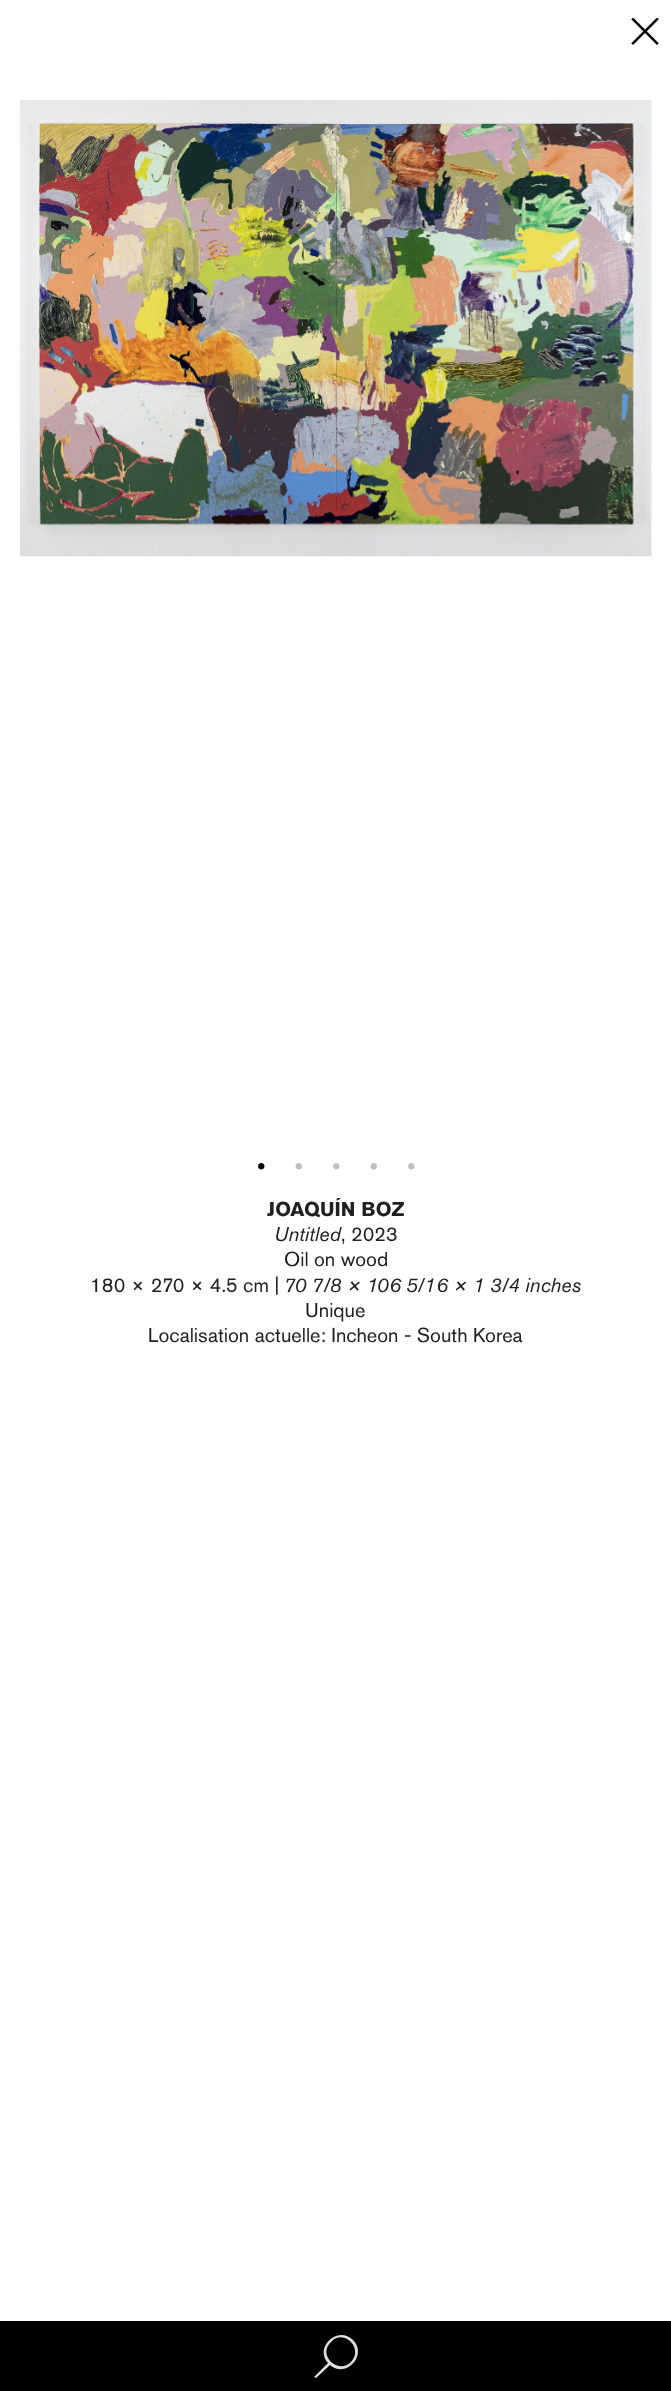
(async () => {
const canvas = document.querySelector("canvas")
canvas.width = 671
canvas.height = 2391
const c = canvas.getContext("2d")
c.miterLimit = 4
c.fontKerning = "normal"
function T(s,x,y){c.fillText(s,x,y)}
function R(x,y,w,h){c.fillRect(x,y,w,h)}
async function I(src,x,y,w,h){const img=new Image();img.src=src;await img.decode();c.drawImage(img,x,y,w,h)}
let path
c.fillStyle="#fff"
R(0,0,671,2391)
await I("1.png",631,18,28,27)
await I("2.png",20,100,632,457)
await I("3.png",258,1163,7,7)
await I("4.png",295,1163,7,7)
await I("5.png",333,1163,7,7)
await I("4.png",370,1163,7,7)
await I("5.png",408,1163,7,7)
c.fillStyle="#000"
R(0,2321,671,70)
c.fillStyle="#dedede"
path = new Path2D("M353 2340c15 15-7 39-23 25l-14 13l-2-1l14-14c-14-16 10-38 25-23zm-22 2c-14 13 7 33 20 20c13-13-7-34-20-20z")
c.fill(path)
c.font="bold 20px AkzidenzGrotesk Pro"
c.fillStyle="#212121"
T("JOAQUÍN BOZ",267,1216)
c.font="italic 20px AkzidenzGrotesk Pro"
T("Untitled",274,1241)
c.font="20px AkzidenzGrotesk Pro"
T(", 2023",341,1241)
T("Oil on wood",284,1266)
T("180 × 270 × 4.5 cm |",90,1292)
c.font="italic 20px AkzidenzGrotesk Pro"
T("70 7/8 × 106 5/16 × 1 3/4 inches",284,1292)
c.font="20px AkzidenzGrotesk Pro"
T("Unique",305,1317)
T("Localisation actuelle: Incheon - South Korea",148,1342)
})()
